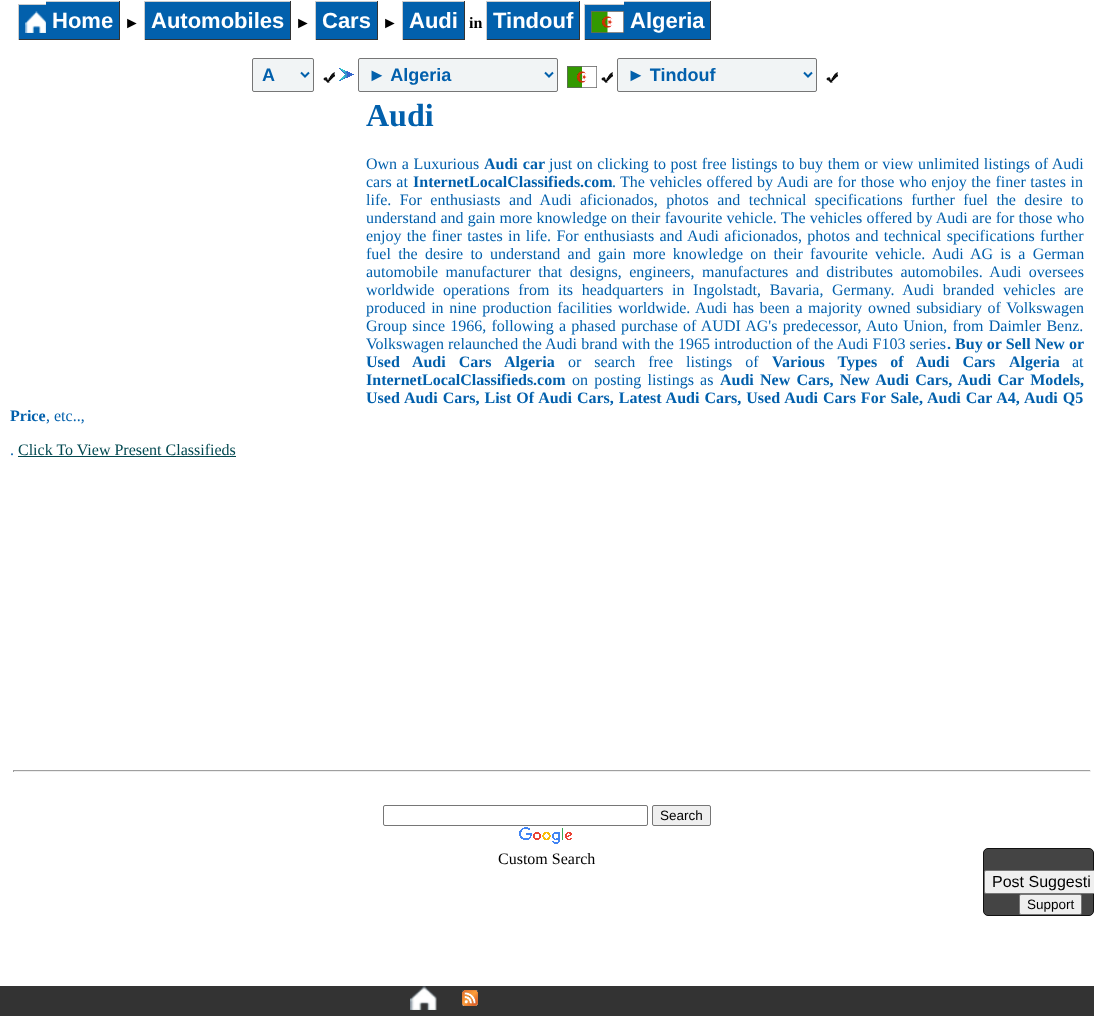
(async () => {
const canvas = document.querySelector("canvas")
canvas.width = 1094
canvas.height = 1016
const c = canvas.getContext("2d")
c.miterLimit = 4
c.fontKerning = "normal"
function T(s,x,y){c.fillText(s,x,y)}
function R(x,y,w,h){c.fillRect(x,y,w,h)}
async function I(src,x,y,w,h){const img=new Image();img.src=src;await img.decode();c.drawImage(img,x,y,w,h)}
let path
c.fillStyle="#fff"
R(0,0,1094,1016)
c.fillStyle="#0260ac"
R(19,5,27,34)
await I("1.png",25,11,21,22)
R(46,2,73,37)
c.font="bold 22px Liberation Sans"
c.fillStyle="#fff"
T("Home",52,28)
c.fillStyle="#ccc"
R(18,4,28,1)
c.fillStyle="#333"
R(18,39,28,1)
c.fillStyle="#ccc"
R(18,4,1,36)
R(46,1,74,1)
c.fillStyle="#333"
R(119,1,1,39)
R(46,39,74,1)
c.font="16px Liberation Serif"
c.fillStyle="#000"
T("►",124,28)
c.fillStyle="#0260ac"
R(145,2,145,37)
c.font="bold 22px Liberation Sans"
c.fillStyle="#fff"
T("Automobiles",151,28)
c.fillStyle="#ccc"
R(144,1,147,1)
c.fillStyle="#333"
R(290,1,1,39)
R(144,39,147,1)
c.fillStyle="#ccc"
R(144,1,1,39)
c.font="16px Liberation Serif"
c.fillStyle="#000"
T("►",295,28)
c.fillStyle="#0260ac"
R(316,2,61,37)
c.font="bold 22px Liberation Sans"
c.fillStyle="#fff"
T("Cars",322,28)
c.fillStyle="#ccc"
R(315,1,63,1)
c.fillStyle="#333"
R(377,1,1,39)
R(315,39,63,1)
c.fillStyle="#ccc"
R(315,1,1,39)
c.font="16px Liberation Serif"
c.fillStyle="#000"
T("►",382,28)
c.fillStyle="#0260ac"
R(403,2,61,37)
c.font="bold 22px Liberation Sans"
c.fillStyle="#fff"
T("Audi",409,28)
c.fillStyle="#ccc"
R(402,1,63,1)
c.fillStyle="#333"
R(464,1,1,39)
R(402,39,63,1)
c.fillStyle="#ccc"
R(402,1,1,39)
c.font="bold 16px Liberation Serif"
c.fillStyle="#000"
T("in",469,28)
c.fillStyle="#0260ac"
R(487,2,92,37)
c.font="bold 22px Liberation Sans"
c.fillStyle="#fff"
T("Tindouf",493,28)
c.fillStyle="#ccc"
R(486,1,94,1)
c.fillStyle="#333"
R(579,1,1,39)
R(486,39,94,1)
c.fillStyle="#ccc"
R(486,1,1,39)
c.fillStyle="#0260ac"
R(585,5,39,34)
await I("2.png",591,11,33,22)
R(624,2,86,37)
c.fillStyle="#fff"
T("Algeria",630,28)
c.fillStyle="#ccc"
R(584,4,40,1)
c.fillStyle="#333"
R(584,39,40,1)
c.fillStyle="#ccc"
R(584,4,1,36)
R(624,1,87,1)
c.fillStyle="#333"
R(710,1,1,39)
R(624,39,87,1)
c.fillStyle="#f1f4f5"
c.beginPath()
c.roundRect(252.5,58.5,61,33,1.5)
c.fill()
c.strokeStyle="#767676"
c.stroke()
path = new Path2D("M301 72.5l4 4l4-4")
c.strokeStyle="#0260ac"
c.lineWidth=2
c.stroke(path)
c.font="bold 18px Liberation Sans"
c.fillStyle="#0260ac"
T("A",262,81)
await I("3.png",323,72,12,11)
await I("4.png",339,68,15,13)
c.fillStyle="#f1f4f5"
c.beginPath()
c.roundRect(358.5,58.5,199,33,1.5)
c.fill()
c.strokeStyle="#767676"
c.lineWidth=1
c.stroke()
path = new Path2D("M545 72.5l4 4l4-4")
c.strokeStyle="#0260ac"
c.lineWidth=2
c.stroke(path)
c.fillStyle="#0260ac"
T("► Algeria",368,81)
await I("5.png",567,66,30,22)
await I("3.png",601,72,12,11)
c.fillStyle="#f1f4f5"
c.beginPath()
c.roundRect(617.5,58.5,199,33,1.5)
c.fill()
c.strokeStyle="#767676"
c.lineWidth=1
c.stroke()
path = new Path2D("M804 72.5l4 4l4-4")
c.strokeStyle="#0260ac"
c.lineWidth=2
c.stroke(path)
c.fillStyle="#0260ac"
T("► Tindouf",627,81)
await I("3.png",826,72,12,11)
c.font="bold 32px Liberation Serif"
T("Audi",366,126)
c.wordSpacing="0.6px"
c.font="16px Liberation Serif"
T("Own a Luxurious",366,169)
c.wordSpacing="1px"
c.font="bold 16px Liberation Serif"
T("Audi car",484,169)
c.wordSpacing="0.6px"
c.font="16px Liberation Serif"
T("just on clicking to post free listings to buy them or view unlimited listings of Audi",549,169)
T("cars at",366,187)
c.wordSpacing="0px"
c.font="bold 16px Liberation Serif"
T("InternetLocalClassifieds.com",413,187)
c.font="16px Liberation Serif"
T(".",612,187)
c.wordSpacing="0.6px"
T("The vehicles offered by Audi are for those who enjoy the finer tastes in",620,187)
c.wordSpacing="4.4px"
T("life. For enthusiasts and Audi aficionados, photos and technical specifications further fuel the desire to",366,205)
c.wordSpacing="0.2px"
T("understand and gain more knowledge on their favourite vehicle. The vehicles offered by Audi are for those who",366,223)
c.wordSpacing="1.3px"
T("enjoy the finer tastes in life. For enthusiasts and Audi aficionados, photos and technical specifications further",366,241)
c.wordSpacing="3.25px"
T("fuel the desire to understand and gain more knowledge on their favourite vehicle. Audi AG is a German",366,259)
c.wordSpacing="3.5px"
T("automobile manufacturer that designs, engineers, manufactures and distributes automobiles. Audi oversees",366,277)
c.wordSpacing="4.6px"
T("worldwide operations from its headquarters in Ingolstadt, Bavaria, Germany. Audi branded vehicles are",366,295)
c.wordSpacing="1.6px"
T("produced in nine production facilities worldwide. Audi has been a majority owned subsidiary of Volkswagen",366,313)
c.wordSpacing="1.25px"
T("Group since 1966, following a phased purchase of AUDI AG's predecessor, Auto Union, from Daimler Benz.",366,331)
c.wordSpacing="0.1px"
T("Volkswagen relaunched the Audi brand with the 1965 introduction of the Audi F103 series",366,349)
c.font="bold 16px Liberation Serif"
T(". Buy or Sell New or",947,349)
c.wordSpacing="9px"
T("Used Audi Cars",366,367)
c.wordSpacing="0px"
T("Algeria",504,367)
c.wordSpacing="9px"
c.font="16px Liberation Serif"
T("or search free listings of",568,367)
c.font="bold 16px Liberation Serif"
T("Various Types of Audi Cars",772,367)
c.wordSpacing="0px"
T("Algeria",1009,367)
c.font="16px Liberation Serif"
T("at",1072,367)
c.font="bold 16px Liberation Serif"
T("InternetLocalClassifieds.com",366,385)
c.wordSpacing="2.25px"
c.font="16px Liberation Serif"
T("on posting listings as",572,385)
c.font="bold 16px Liberation Serif"
T("Audi New Cars, New Audi Cars, Audi Car Models,",720,385)
c.wordSpacing="1px"
T("Used Audi Cars, List Of Audi Cars, Latest Audi Cars, Used Audi Cars For Sale, Audi Car A4, Audi Q5",366,403)
c.wordSpacing="0px"
T("Price",10,421)
c.font="16px Liberation Serif"
T(", etc..,",46,421)
T(".",10,455)
c.fillStyle="#024850"
T("Click To View Present Classifieds",18,455)
R(18,456,218,1)
c.fillStyle="#9f9f9f"
R(13,770,1078,1)
c.fillStyle="#eee"
R(1090,770,1,2)
R(13,771,1078,1)
c.fillStyle="#9f9f9f"
R(13,770,1,2)
c.beginPath()
c.roundRect(383.5,805.5,264,20,1.5)
c.strokeStyle="#767676"
c.lineWidth=1
c.stroke()
c.fillStyle="#efefef"
c.beginPath()
c.roundRect(652.5,805.5,58,20,1.5)
c.fill()
c.stroke()
c.font="13.5px Liberation Sans"
c.fillStyle="#000"
T("Search",660,820)
await I("6.png",519,827,53,17)
c.font="16px Liberation Serif"
T("Custom Search",498,864)
c.fillStyle="#444"
c.beginPath()
c.roundRect(983.5,848.5,110,67,4.5)
c.fill()
c.strokeStyle="#111"
c.stroke()
c.fillStyle="#efefef"
c.beginPath()
c.roundRect(984.5,870.5,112,23,1.5)
c.fill()
c.strokeStyle="#767676"
c.stroke()
c.font="16px Liberation Sans"
c.fillStyle="#000"
T("Post Suggesti",992,887)
c.fillStyle="#efefef"
c.beginPath()
c.roundRect(1019.5,894.5,62,20,1.5)
c.fill()
c.stroke()
c.font="13.5px Liberation Sans"
c.fillStyle="#000"
T("Support",1027,909)
c.fillStyle="#333"
R(0,986,1094,30)
await I("7.png",410,986,27,24)
await I("8.png",462,990,16,16)
})()
